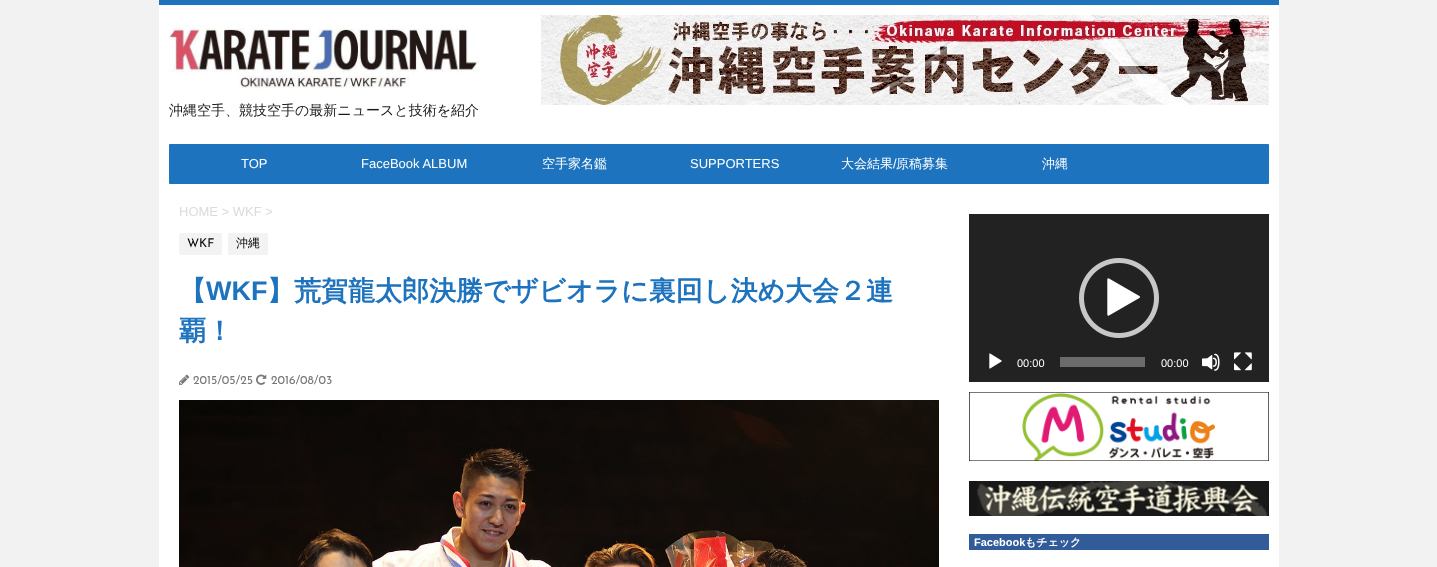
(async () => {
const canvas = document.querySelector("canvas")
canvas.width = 1437
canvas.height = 567
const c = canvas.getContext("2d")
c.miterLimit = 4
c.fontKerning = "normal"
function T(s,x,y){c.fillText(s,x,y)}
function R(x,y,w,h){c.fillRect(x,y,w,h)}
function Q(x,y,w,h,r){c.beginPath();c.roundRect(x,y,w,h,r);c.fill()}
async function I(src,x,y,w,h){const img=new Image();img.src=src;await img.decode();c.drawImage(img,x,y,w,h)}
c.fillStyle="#f2f2f2"
R(0,0,1437,567)
c.fillStyle="#fff"
R(159,5,1120,562)
c.fillStyle="#1e73be"
R(159,0,1120,5)
await I("1.png",541,15,728,90)
await I("2.png",169,25,311,64)
c.font="500 14px WenQuanYi Zen Hei"
c.fillStyle="#1a1a1a"
T("沖縄空手、競技空手の最新ニュースと技術を紹介",169,115)
c.fillStyle="#1e73be"
Q(169,144,1100,40,1)
c.font="13px Liberation Sans"
c.fillStyle="#fff"
T("TOP",241,168)
T("FaceBook ALBUM",361,168)
c.font="500 13px WenQuanYi Zen Hei"
T("空手家名鑑",542,168)
c.font="13px Liberation Sans"
T("SUPPORTERS",690,168)
c.font="500 13px WenQuanYi Zen Hei"
T("大会結果",841,168)
c.font="13px Liberation Sans"
T("/",893,168)
c.font="500 13px WenQuanYi Zen Hei"
T("原稿募集",896,168)
T("沖縄",1042,168)
c.font="13px Liberation Sans"
c.fillStyle="#dbdbdb"
T("HOME > WKF >",179,216)
c.fillStyle="#f3f3f3"
Q(179,233,43,22,2)
c.font="12px Josefin Sans"
c.fillStyle="#000"
T("WKF",187,247)
c.fillStyle="#f3f3f3"
Q(228,233,40,22,2)
c.font="500 12px WenQuanYi Zen Hei"
c.fillStyle="#000"
T("沖縄",236,247)
c.font="bold 27px WenQuanYi Zen Hei"
c.fillStyle="#1e73be"
T("【",179,300)
c.font="bold 27px Liberation Sans"
T("WKF",206,300)
c.font="bold 27px WenQuanYi Zen Hei"
T("】荒賀龍太郎決勝でザビオラに裏回し決め大会２連",267,300)
T("覇！",179,340)
await I("3.png",179,374,11,11)
c.font="12px Josefin Sans"
c.fillStyle="#777"
T("2015/05/25",193,384)
await I("4.png",256,374,11,11)
T("2016/08/03",271,384)
await I("5.png",179,400,760,167)
c.fillStyle="#222"
R(969,214,300,168)
await I("6.png",1079,258,80,80)
await I("7.png",989,353,13,16)
c.font="11px Liberation Sans"
c.fillStyle="#fff"
T("00:00",1017,367)
c.fillStyle="#6b6b6b"
R(1060,357,85,10)
c.fillStyle="#fff"
T("00:00",1161,367)
await I("8.png",1202,353,18,18)
await I("9.png",1234,352,18,19)
await I("10.png",969,392,300,69)
await I("11.png",969,481,300,35)
c.fillStyle="#315c99"
R(969,534,300,16)
c.font="bold 11px Liberation Sans"
c.fillStyle="#fff"
T("Facebook",974,546)
c.font="bold 11px WenQuanYi Zen Hei"
T("もチェック",1025,546)
})()
